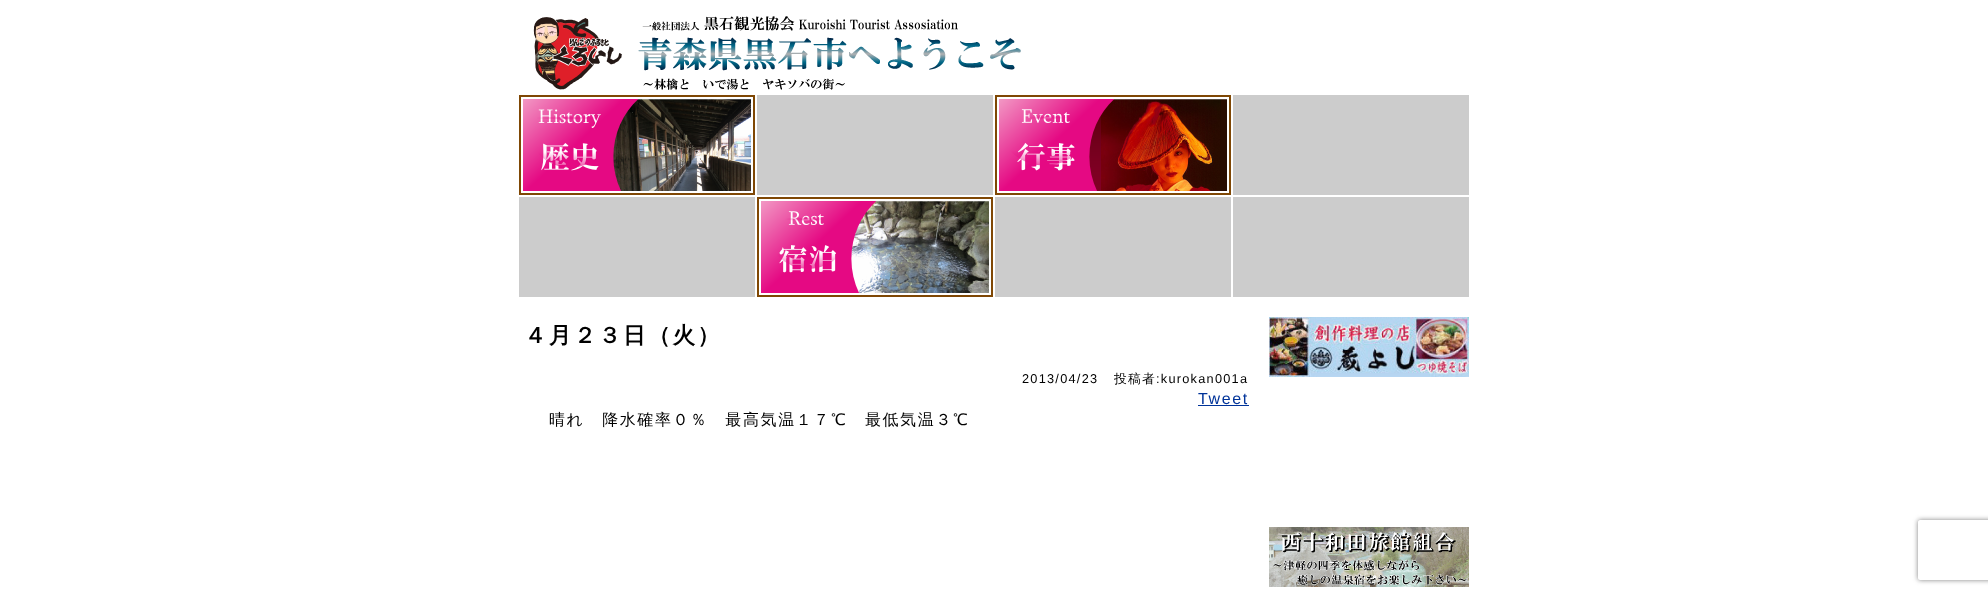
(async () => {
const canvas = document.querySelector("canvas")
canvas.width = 1988
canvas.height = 594
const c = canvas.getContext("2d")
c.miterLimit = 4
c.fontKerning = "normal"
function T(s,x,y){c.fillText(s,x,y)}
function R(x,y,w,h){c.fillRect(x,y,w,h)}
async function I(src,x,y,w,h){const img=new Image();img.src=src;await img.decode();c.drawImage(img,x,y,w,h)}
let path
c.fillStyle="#fff"
R(0,0,1988,594)
await I("1.png",533,16,488,74)
await I("2.png",519,95,236,100)
c.fillStyle="#ccc"
R(757,95,236,100)
await I("3.png",995,95,236,100)
R(1233,95,236,100)
R(519,197,236,100)
await I("4.png",757,197,236,100)
R(995,197,236,100)
R(1233,197,236,100)
c.letterSpacing="2.25px"
c.font="bold 22.5px WenQuanYi Zen Hei"
c.fillStyle="#000"
T("４月２３日（火）",524,343)
c.letterSpacing="1.25px"
c.font="12.75px Liberation Sans"
T("2013/04/23",1022,383)
c.font="500 12.75px WenQuanYi Zen Hei"
T("投稿者",1114,383)
c.font="12.75px Liberation Sans"
T(":kurokan001a",1156,383)
c.letterSpacing="1.6px"
c.font="16px Liberation Sans"
c.fillStyle="#039"
T("Tweet",1198,404)
R(1198,405,51,1)
c.font="500 16px WenQuanYi Zen Hei"
c.fillStyle="#000"
T("晴れ　降水確率０％　最高気温１７℃　最低気温３℃",549,425)
await I("5.png",1269,317,200,60)
await I("6.png",1269,527,200,60)
c.save()
path = new Path2D("M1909 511h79v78h-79zm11 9h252c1 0 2 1 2 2v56c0 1-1 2-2 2h-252c-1 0-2-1-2-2v-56c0-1 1-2 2-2z")
c.clip(path,"evenodd")
c.fillStyle="#808080"
c.filter="blur(2.5px)"
c.beginPath()
c.roundRect(1918,520,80,60,2)
c.fill()
c.filter="none"
c.restore()
})()
